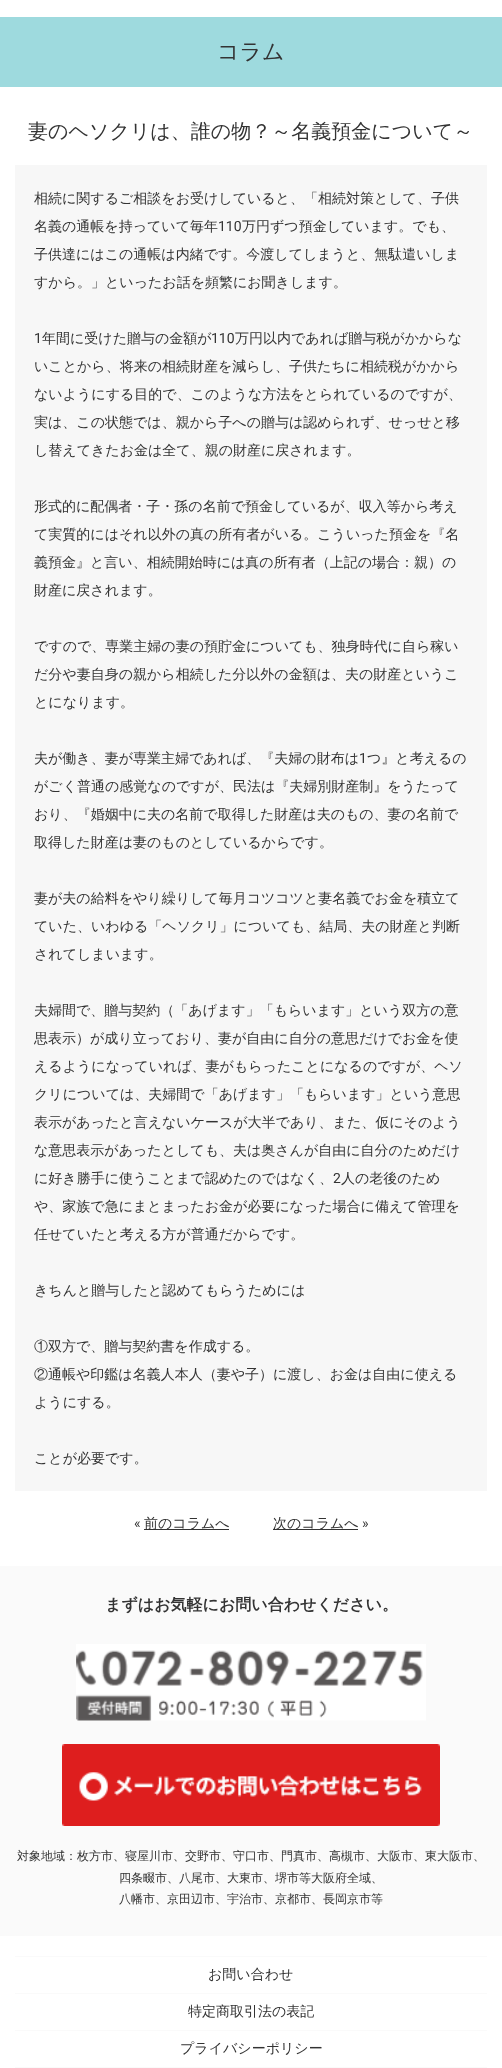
(async () => {
const canvas = document.querySelector("canvas")
canvas.width = 502
canvas.height = 2068
const c = canvas.getContext("2d")
c.miterLimit = 4
c.fontKerning = "normal"
function T(s,x,y){c.fillText(s,x,y)}
function R(x,y,w,h){c.fillRect(x,y,w,h)}
async function I(src,x,y,w,h){const img=new Image();img.src=src;await img.decode();c.drawImage(img,x,y,w,h)}
c.fillStyle="#fff"
R(0,0,502,2068)
c.fillStyle="#9edade"
R(0,17,502,70)
c.font="500 22px WenQuanYi Zen Hei"
c.fillStyle="#333"
T("コラム",217,59)
c.font="500 20px WenQuanYi Zen Hei"
T("妻のヘソクリは、誰の物？～名義預金について～",28,138)
c.fillStyle="#f7f7f7"
R(15,165,472,1326)
c.font="500 14px WenQuanYi Zen Hei"
c.fillStyle="#333"
T("相続に関するご相談をお受けしていると、「相続対策として、子供",34,203)
T("名義の通帳を持っていて毎年",34,231)
c.font="14px Roboto"
T("110",218,231)
c.font="500 14px WenQuanYi Zen Hei"
T("万円ずつ預金しています。でも、",242,231)
T("子供達にはこの通帳は内緒です。今渡してしまうと、無駄遣いしま",34,259)
T("すから。」といったお話を頻繁にお聞きします。",34,287)
c.font="14px Roboto"
T("1",34,343)
c.font="500 14px WenQuanYi Zen Hei"
T("年間に受けた贈与の金額が",42,343)
c.font="14px Roboto"
T("110",211,343)
c.font="500 14px WenQuanYi Zen Hei"
T("万円以内であれば贈与税がかからな",235,343)
T("いことから、将来の相続財産を減らし、子供たちに相続税がかから",34,371)
T("ないようにする目的で、このような方法をとられているのですが、",34,399)
T("実は、この状態では、親から子への贈与は認められず、せっせと移",34,427)
T("し替えてきたお金は全て、親の財産に戻されます。",34,455)
T("形式的に配偶者・子・孫の名前で預金しているが、収入等から考え",34,511)
T("て実質的にはそれ以外の真の所有者がいる。こういった預金を『名",34,539)
T("義預金』と言い、相続開始時には真の所有者（上記の場合：親）の",34,567)
T("財産に戻されます。",34,595)
T("ですので、専業主婦の妻の預貯金についても、独身時代に自ら稼い",34,651)
T("だ分や妻自身の親から相続した分以外の金額は、夫の財産というこ",34,679)
T("とになります。",34,707)
T("夫が働き、妻が専業主婦であれば、『夫婦の財布は",34,763)
c.font="14px Roboto"
T("1",359,763)
c.font="500 14px WenQuanYi Zen Hei"
T("つ』と考えるの",367,763)
T("がごく普通の感覚なのですが、民法は『夫婦別財産制』をうたって",34,791)
T("おり、『婚姻中に夫の名前で取得した財産は夫のもの、妻の名前で",34,819)
T("取得した財産は妻のものとしているからです。",34,847)
T("妻が夫の給料をやり繰りして毎月コツコツと妻名義でお金を積立て",34,903)
T("ていた、いわゆる「ヘソクリ」についても、結局、夫の財産と判断",34,931)
T("されてしまいます。",34,959)
T("夫婦間で、贈与契約（「あげます」「もらいます」という双方の意",34,1015)
T("思表示）が成り立っており、妻が自由に自分の意思だけでお金を使",34,1043)
T("えるようになっていれば、妻がもらったことになるのですが、ヘソ",34,1071)
T("クリについては、夫婦間で「あげます」「もらいます」という意思",34,1099)
T("表示があったと言えないケースが大半であり、また、仮にそのよう",34,1127)
T("な意思表示があったとしても、夫は奥さんが自由に自分のためだけ",34,1155)
T("に好き勝手に使うことまで認めたのではなく、",34,1183)
c.font="14px Roboto"
T("2",333,1183)
c.font="500 14px WenQuanYi Zen Hei"
T("人の老後のため",341,1183)
T("や、家族で急にまとまったお金が必要になった場合に備えて管理を",34,1211)
T("任せていたと考える方が普通だからです。",34,1239)
T("きちんと贈与したと認めてもらうためには",34,1295)
T("①双方で、贈与契約書を作成する。",34,1351)
T("②通帳や印鑑は名義人本人（妻や子）に渡し、お金は自由に使える",34,1379)
T("ようにする。",34,1407)
T("ことが必要です。",34,1463)
c.font="14px Roboto"
T("«",134,1528)
R(144,1529,85,1)
c.font="500 14px WenQuanYi Zen Hei"
T("前のコラムへ",144,1528)
R(273,1529,85,1)
T("次のコラムへ",273,1528)
c.font="14px Roboto"
T("»",362,1528)
c.fillStyle="#fafafa"
R(0,1566,502,370)
c.font="bold 16px WenQuanYi Zen Hei"
c.fillStyle="#333"
T("まずはお気軽にお問い合わせください。",105,1610)
await I("1.png",76,1644,350,77)
await I("2.png",62,1744,378,82)
c.font="500 12px WenQuanYi Zen Hei"
T("対象地域：枚方市、寝屋川市、交野市、守口市、門真市、高槻市、大阪市、東大阪市、",17,1860)
T("四条畷市、八尾市、大東市、堺市等大阪府全域、",119,1882)
T("八幡市、京田辺市、宇治市、京都市、長岡京市等",119,1903)
c.fillStyle="#fafafa"
R(15,1956,472,1)
R(15,1993,472,1)
c.font="500 14px WenQuanYi Zen Hei"
c.fillStyle="#333"
T("お問い合わせ",208,1979)
c.fillStyle="#fafafa"
R(15,2030,472,1)
c.fillStyle="#333"
T("特定商取引法の表記",188,2016)
c.fillStyle="#fafafa"
R(15,2067,472,1)
c.fillStyle="#333"
T("プライバシーポリシー",180,2053)
})()
